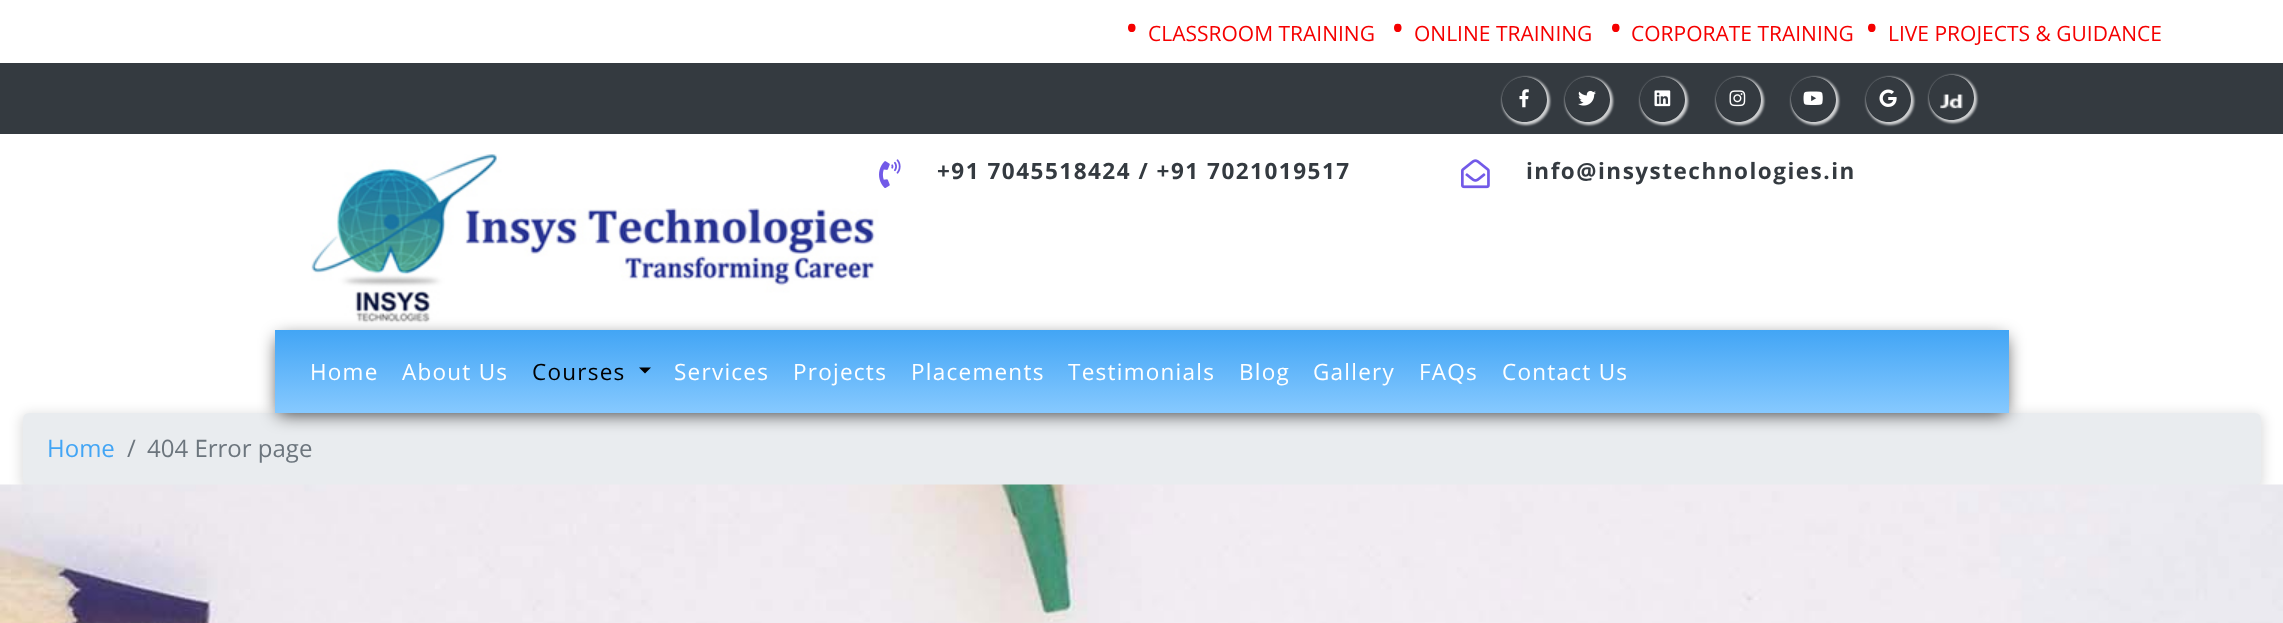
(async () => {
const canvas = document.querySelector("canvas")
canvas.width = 2283
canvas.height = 623
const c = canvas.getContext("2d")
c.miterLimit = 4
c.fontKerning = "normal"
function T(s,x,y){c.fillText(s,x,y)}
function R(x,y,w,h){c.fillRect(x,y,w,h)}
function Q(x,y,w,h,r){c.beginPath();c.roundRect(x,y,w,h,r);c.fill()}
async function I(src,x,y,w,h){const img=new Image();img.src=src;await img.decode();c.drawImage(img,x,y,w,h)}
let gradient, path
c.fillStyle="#fff"
R(0,0,2283,623)
c.font="36px Open Sans"
c.fillStyle="#f50000"
T("•",1125,41)
c.font="21px Open Sans"
T("CLASSROOM TRAINING",1148,41)
c.font="36px Open Sans"
T("•",1391,41)
c.font="21px Open Sans"
T("ONLINE TRAINING",1414,41)
c.font="36px Open Sans"
T("•",1609,41)
c.font="21px Open Sans"
T("CORPORATE TRAINING",1631,41)
c.font="36px Open Sans"
T("•",1865,41)
c.font="21px Open Sans"
T("LIVE PROJECTS & GUIDANCE",1888,41)
c.fillStyle="#343a40"
R(0,63,2283,71)
c.save()
path = new Path2D("M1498 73h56v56h-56zm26.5 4c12.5 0 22.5 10 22.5 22.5c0 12.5-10 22.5-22.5 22.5c-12.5 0-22.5-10-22.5-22.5c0-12.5 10-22.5 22.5-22.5z")
c.clip(path,"evenodd")
c.fillStyle="#ffffffc2"
c.filter="blur(1px)"
c.beginPath()
c.roundRect(1502,77,48,48,24)
c.fill()
c.filter="none"
c.restore()
await I("1.png",1519,89,10,19)
c.save()
path = new Path2D("M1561 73h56v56h-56zm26.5 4c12.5 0 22.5 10 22.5 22.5c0 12.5-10 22.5-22.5 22.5c-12.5 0-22.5-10-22.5-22.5c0-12.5 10-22.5 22.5-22.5z")
c.clip(path,"evenodd")
c.fillStyle="#ffffffc2"
c.filter="blur(1px)"
c.beginPath()
c.roundRect(1565,77,48,48,24)
c.fill()
c.filter="none"
c.restore()
await I("2.png",1578,90,18,16)
c.save()
path = new Path2D("M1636 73h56v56h-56zm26.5 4c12.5 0 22.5 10 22.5 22.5c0 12.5-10 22.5-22.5 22.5c-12.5 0-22.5-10-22.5-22.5c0-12.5 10-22.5 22.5-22.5z")
c.clip(path,"evenodd")
c.fillStyle="#ffffffc2"
c.filter="blur(1px)"
c.beginPath()
c.roundRect(1640,77,48,48,24)
c.fill()
c.filter="none"
c.restore()
await I("3.png",1654,90,17,17)
c.save()
path = new Path2D("M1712 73h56v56h-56zm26.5 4c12.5 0 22.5 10 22.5 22.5c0 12.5-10 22.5-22.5 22.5c-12.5 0-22.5-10-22.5-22.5c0-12.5 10-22.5 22.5-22.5z")
c.clip(path,"evenodd")
c.fillStyle="#ffffffc2"
c.filter="blur(1px)"
c.beginPath()
c.roundRect(1716,77,48,48,24)
c.fill()
c.filter="none"
c.restore()
await I("4.png",1729,90,17,17)
c.save()
path = new Path2D("M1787 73h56v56h-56zm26.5 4c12.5 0 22.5 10 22.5 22.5c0 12.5-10 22.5-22.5 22.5c-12.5 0-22.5-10-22.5-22.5c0-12.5 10-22.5 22.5-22.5z")
c.clip(path,"evenodd")
c.fillStyle="#ffffffc2"
c.filter="blur(1px)"
c.beginPath()
c.roundRect(1791,77,48,48,24)
c.fill()
c.filter="none"
c.restore()
await I("5.png",1803,91,20,14)
c.save()
path = new Path2D("M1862 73h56v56h-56zm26.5 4c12.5 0 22.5 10 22.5 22.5c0 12.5-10 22.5-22.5 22.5c-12.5 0-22.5-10-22.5-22.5c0-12.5 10-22.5 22.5-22.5z")
c.clip(path,"evenodd")
c.fillStyle="#ffffffc2"
c.filter="blur(1px)"
c.beginPath()
c.roundRect(1866,77,48,48,24)
c.fill()
c.filter="none"
c.restore()
await I("6.png",1879,89,18,18)
c.save()
path = new Path2D("M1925 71h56v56h-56zm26.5 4c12.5 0 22.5 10 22.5 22.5c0 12.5-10 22.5-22.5 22.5c-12.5 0-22.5-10-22.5-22.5c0-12.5 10-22.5 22.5-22.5z")
c.clip(path,"evenodd")
c.fillStyle="#ffffffc2"
c.filter="blur(1px)"
c.beginPath()
c.roundRect(1929,75,48,48,24)
c.fill()
c.filter="none"
c.restore()
await I("7.png",1940,94,23,15)
await I("8.png",311,154,568,169)
await I("9.png",879,159,22,29)
c.letterSpacing="1.5px"
c.font="bold 22.5px Open Sans"
T("+91 7045518424 / +91 7021019517",937,179)
await I("10.png",1461,159,29,30)
T("info@insystechnologies.in",1526,179)
c.fillStyle="#0000001f"
c.filter="blur(6px)"
c.beginPath()
c.roundRect(20,413,2244,78,9)
c.fill()
c.filter="none"
c.fillStyle="#e9ecef"
Q(23,413,2238,72,6)
c.fillStyle="#000000bf"
c.filter="blur(9px)"
c.beginPath()
c.rect(278,338,1728,76)
c.fill()
c.filter="none"
gradient = c.createLinearGradient(1142,330,1142,413)
gradient.addColorStop(0,"#42a5f5")
gradient.addColorStop(1,"#86c9ff")
c.fillStyle = gradient
R(275,330,1734,83)
c.letterSpacing="1.25px"
c.font="22.5px Open Sans"
c.fillStyle="#fff"
T("Home",310,380)
T("About Us",402,380)
c.fillStyle="#000"
T("Courses",532,380)
path = new Path2D("M639 367.5h12l-6 6z")
c.fill(path)
c.fillStyle="#fff"
T("Services",674,380)
T("Projects",793,380)
T("Placements",911,380)
T("Testimonials",1068,380)
T("Blog",1239,380)
T("Gallery",1313,380)
T("FAQs",1419,380)
T("Contact Us",1502,380)
c.letterSpacing="0px"
c.font="24px Open Sans"
c.fillStyle="#42a5f5"
T("Home",47,457)
c.fillStyle="#6c757d"
T("/",127,457)
T("404 Error page",147,457)
await I("11.png",0,484,2283,139)
})()
